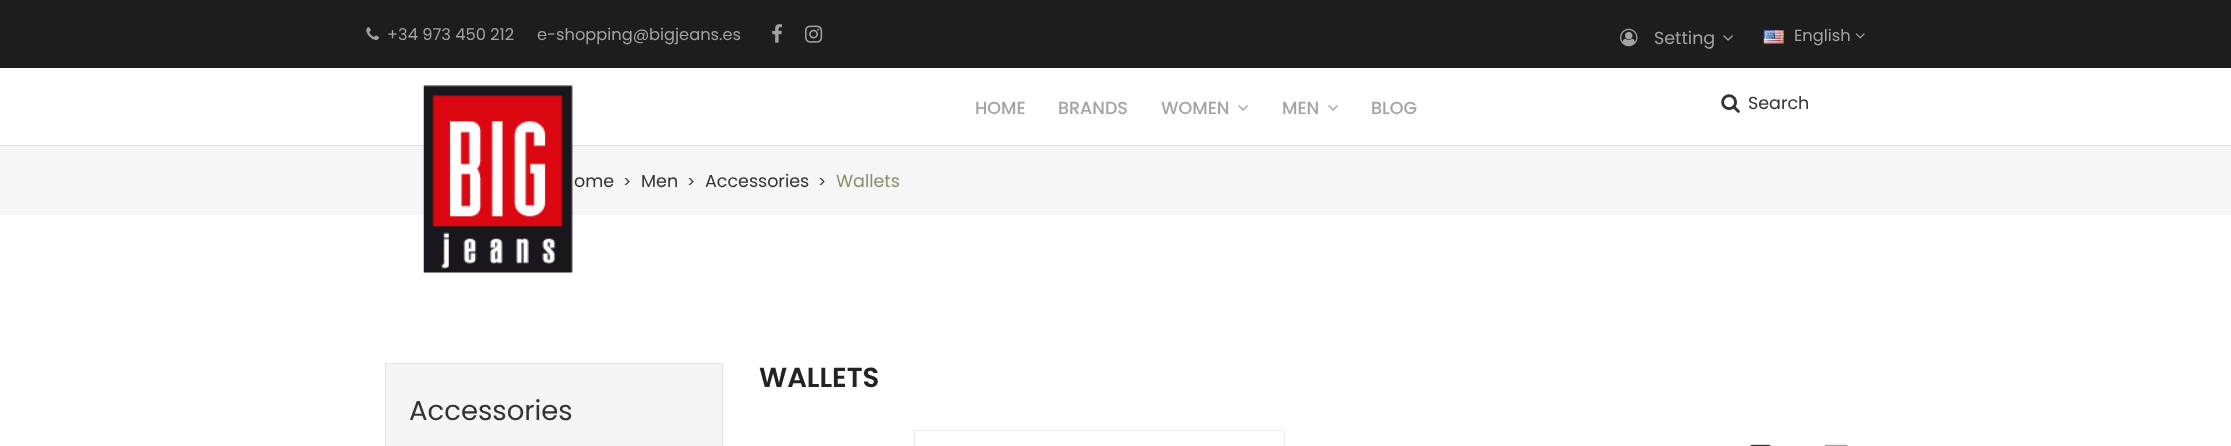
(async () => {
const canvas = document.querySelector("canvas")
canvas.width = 2231
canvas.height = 446
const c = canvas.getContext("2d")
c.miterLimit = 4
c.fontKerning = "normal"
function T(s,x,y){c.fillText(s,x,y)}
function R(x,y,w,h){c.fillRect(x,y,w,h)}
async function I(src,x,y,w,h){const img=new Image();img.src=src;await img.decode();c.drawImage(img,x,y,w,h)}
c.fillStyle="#fff"
R(0,0,2231,446)
c.fillStyle="#1d1d1d"
R(0,0,2231,68)
await I("1.png",366,27,13,13)
c.font="16.25px Poppins"
c.fillStyle="#a3a3a3"
T("+34 973 450 212",387,40)
T("e-shopping@bigjeans.es",537,40)
await I("2.png",772,24,10,19)
await I("3.png",805,25,18,18)
await I("4.png",1620,28,18,19)
c.font="17.5px Poppins"
T("Setting",1654,44)
await I("5.png",1723,35,10,6)
await I("6.png",1763,30,21,14)
c.font="16.25px Poppins"
T("English",1794,41)
await I("7.png",1855,33,10,6)
c.fillStyle="#f6f6f6"
R(0,146,2231,69)
c.fillStyle="#ddd"
R(0,145,2231,1)
await I("8.png",423,85,150,188)
c.font="500 17.5px Poppins"
c.fillStyle="#a3a3a3"
T("HOME",975,114)
T("BRANDS",1058,114)
T("WOMEN",1161,114)
await I("9.png",1238,105,10,6)
T("MEN",1282,114)
await I("9.png",1328,105,10,6)
T("BLOG",1371,114)
await I("10.png",1721,94,19,19)
c.font="17.5px Poppins"
c.fillStyle="#333"
T("Search",1748,109)
T("ome",574,187)
c.font="15px Poppins"
T(">",623,187)
c.font="17.5px Poppins"
T("Men",641,187)
c.font="15px Poppins"
T(">",687,187)
c.font="17.5px Poppins"
T("Accessories",705,187)
c.font="15px Poppins"
T(">",818,187)
c.font="17.5px Poppins"
c.fillStyle="#8a8f6a"
T("Wallets",836,187)
c.font="600 27.5px Poppins"
c.fillStyle="#232323"
T("WALLETS",759,387)
c.strokeStyle="#ededed"
c.strokeRect(914.5,430.5,370,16)
await I("11.png",1750,444,21,2)
await I("12.png",1825,444,23,2)
c.fillStyle="#f5f5f5"
c.beginPath()
c.rect(385.5,363.5,337,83)
c.fill()
c.strokeStyle="#e5e5e5"
c.stroke()
c.font="27.5px Poppins"
c.fillStyle="#333"
T("Accessories",409,420)
})()
